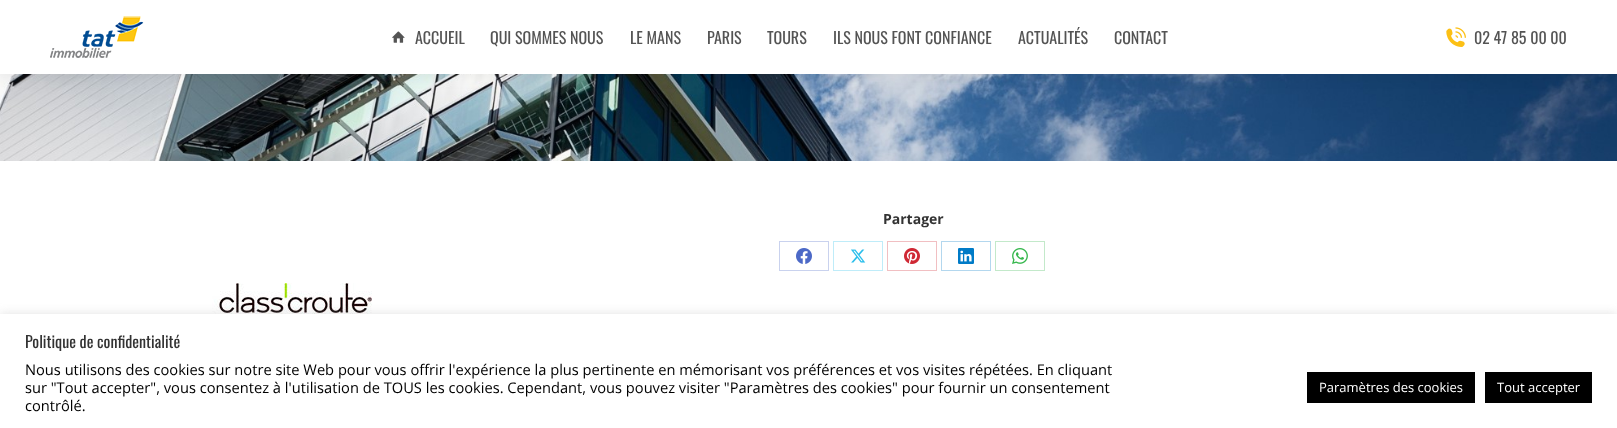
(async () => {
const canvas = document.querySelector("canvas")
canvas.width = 1617
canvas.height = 428
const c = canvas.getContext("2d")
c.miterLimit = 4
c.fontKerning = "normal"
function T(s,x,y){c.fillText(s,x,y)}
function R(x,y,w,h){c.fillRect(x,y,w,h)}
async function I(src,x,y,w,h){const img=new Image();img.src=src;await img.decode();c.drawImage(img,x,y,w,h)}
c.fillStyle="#fff"
R(0,0,1617,428)
await I("4.png",0,74,1617,87)
c.fillStyle="#00000012"
c.filter="blur(7.5px)"
c.beginPath()
c.rect(-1,-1,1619,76)
c.fill()
c.filter="none"
c.fillStyle="#fff"
R(0,0,1617,74)
await I("1.png",50,16,94,42)
await I("2.png",392,31,13,12)
c.font="16px Oswald"
c.fillStyle="#545454"
T("ACCUEIL",415,44)
T("QUI SOMMES NOUS",490,44)
T("LE MANS",630,44)
T("PARIS",707,44)
T("TOURS",767,44)
T("ILS NOUS FONT CONFIANCE",833,44)
T("ACTUALITÉS",1018,44)
T("CONTACT",1114,44)
await I("3.png",1446,27,20,20)
T("02 47 85 00 00",1474,44)
c.font="bold 14px Open Sans"
c.fillStyle="#333"
T("Partager",883,224)
c.strokeStyle="#c9d2ee"
c.strokeRect(779.5,241.5,49,29)
await I("5.png",796,248,16,16)
c.strokeStyle="#bfecf9"
c.strokeRect(833.5,241.5,49,29)
await I("6.png",851,249,15,14)
c.strokeStyle="#f1bfc2"
c.strokeRect(887.5,241.5,49,29)
await I("7.png",904,248,16,16)
c.strokeStyle="#b3d7ee"
c.strokeRect(941.5,241.5,49,29)
await I("8.png",958,248,16,16)
c.strokeStyle="#c3e9ca"
c.strokeRect(995.5,241.5,49,29)
await I("9.png",1012,248,16,16)
await I("10.png",212,283,160,31)
c.fillStyle="#acabab4d"
c.filter="blur(5px)"
c.beginPath()
c.rect(0,313,1617,114)
c.fill()
c.filter="none"
c.fillStyle="#fff"
R(0,314,1617,114)
c.font="16px Oswald"
c.fillStyle="#333"
T("Politique de confidentialité",25,348)
c.font="14.67px Open Sans"
c.fillStyle="#000"
T("Nous utilisons des cookies sur notre site Web pour vous offrir l'expérience la plus pertinente en mémorisant vos préférences et vos visites répétées. En cliquant",25,375)
T("sur \"Tout accepter\", vous consentez à l'utilisation de TOUS les cookies. Cependant, vous pouvez visiter \"Paramètres des cookies\" pour fournir un consentement",25,393)
T("contrôlé.",25,411)
R(1307,372,168,31)
c.font="13px Open Sans"
c.fillStyle="#fff"
T("Paramètres des cookies",1319,392)
c.fillStyle="#000"
R(1485,372,107,31)
c.fillStyle="#fff"
T("Tout accepter",1497,392)
})()
